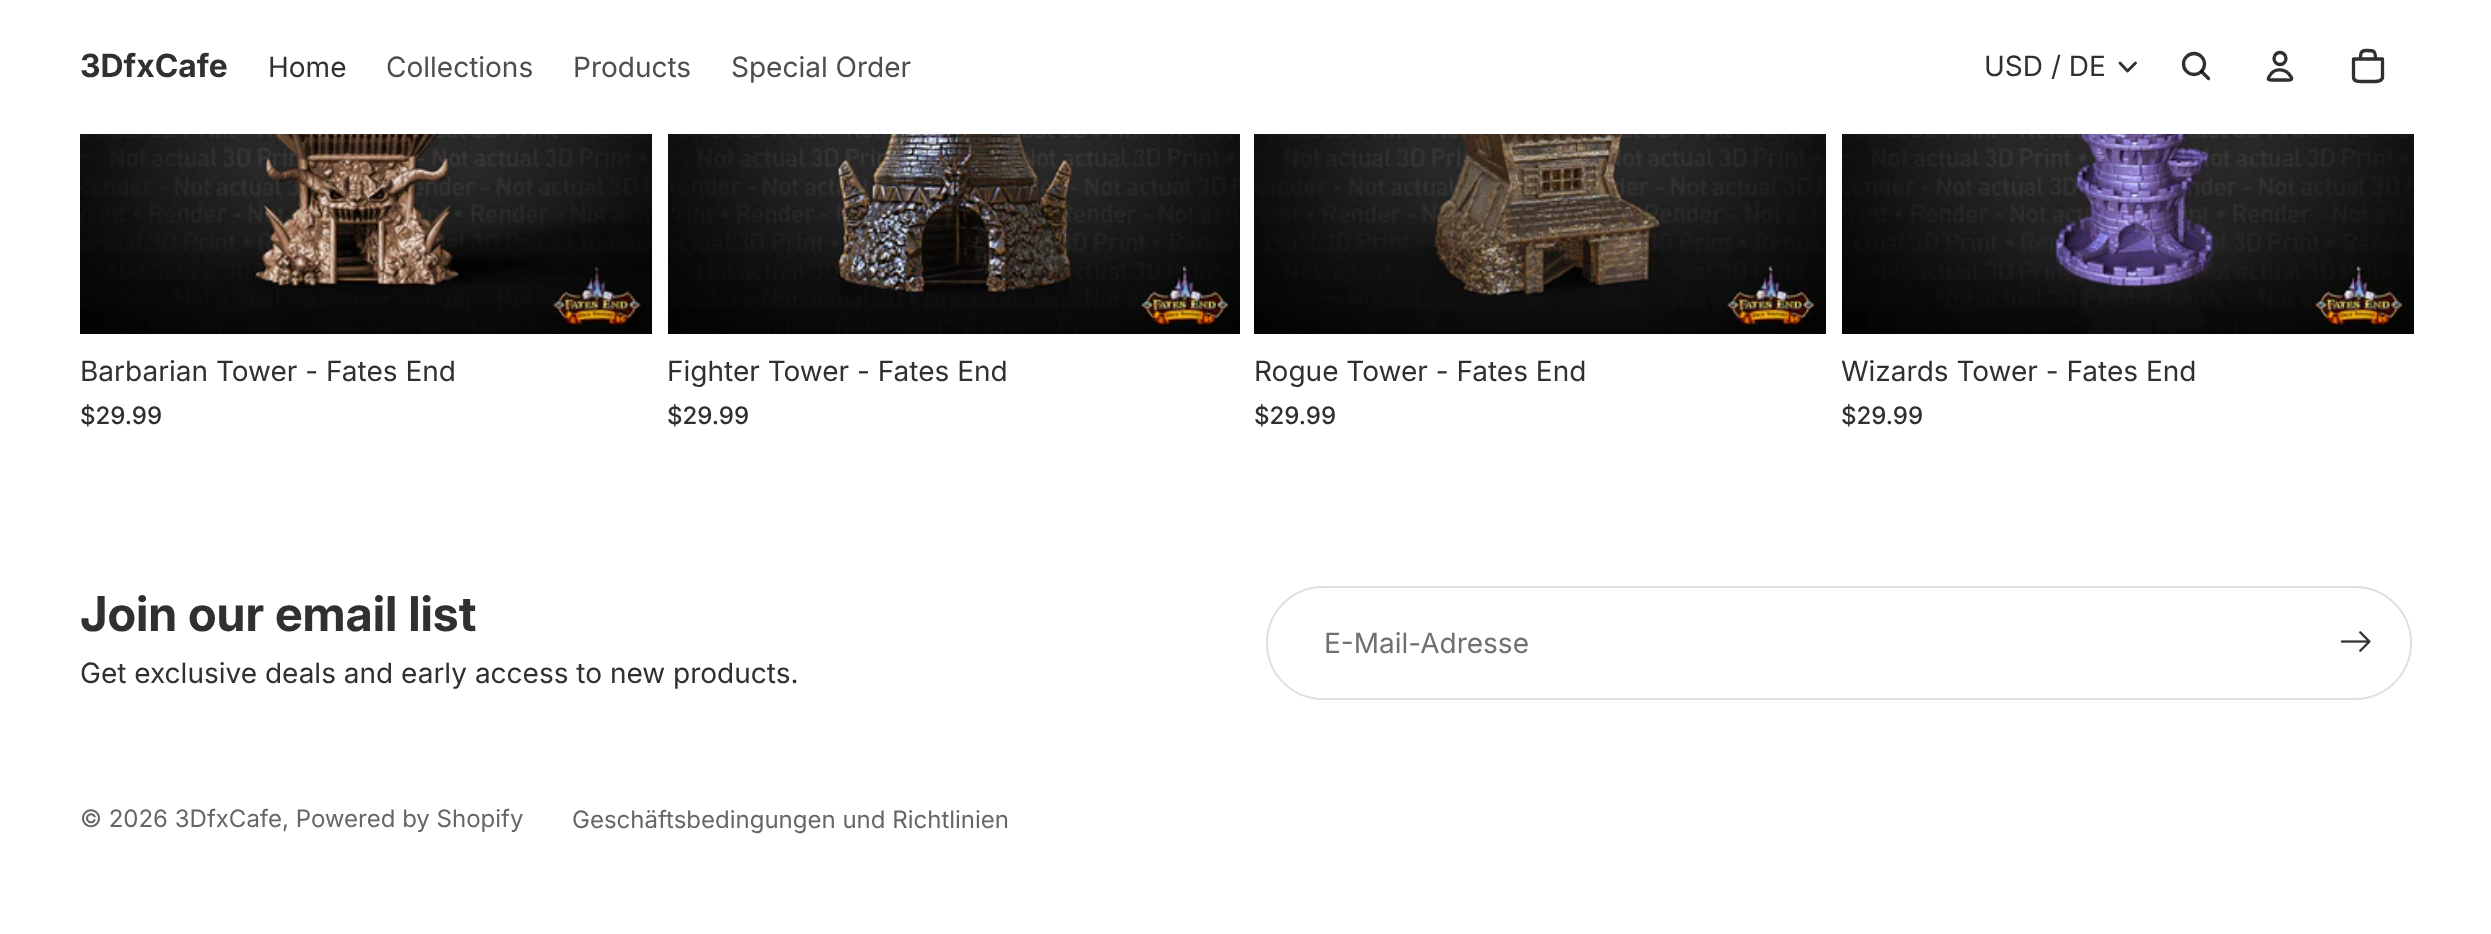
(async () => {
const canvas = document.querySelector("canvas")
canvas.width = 2491
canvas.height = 934
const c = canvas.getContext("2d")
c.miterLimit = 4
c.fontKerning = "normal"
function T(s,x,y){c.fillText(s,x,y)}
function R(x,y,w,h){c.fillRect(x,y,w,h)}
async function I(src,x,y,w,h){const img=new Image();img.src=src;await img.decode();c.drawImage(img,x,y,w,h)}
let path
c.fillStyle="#fff"
R(0,0,2491,934)
c.font="bold 32px 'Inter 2'"
c.fillStyle="#303030"
T("3DfxCafe",80,77)
c.font="28px Inter"
T("Home",268,77)
c.fillStyle="#4d4d4d"
T("Collections",386,77)
T("Products",573,77)
T("Special Order",731,77)
c.fillStyle="#303030"
T("USD / DE",1984,76)
path = new Path2D("M2135.5 63l-8 8l-7.5-8")
c.strokeStyle="#303030"
c.lineWidth=2.9
c.lineCap="round"
c.lineJoin="round"
c.stroke(path)
c.beginPath()
c.arc(2194,64,10.5,0,7)
c.lineWidth=3.3
c.stroke()
path = new Path2D("M2201.5 71.5l7 7")
c.strokeStyle="#000000cf"
c.stroke(path)
c.beginPath()
c.arc(2280,58.5,6,0,7)
c.strokeStyle="#303030"
c.stroke()
path = new Path2D("M2269.5 76c-2.5 4-1 4 3.5 4h14c.5 0 4 .5 4.5-1c.5-.5 0-1.5-.5-2c-4.5-8.5-16.5-10-21.5-1")
c.stroke(path)
path = new Path2D("M2353.5 59h29v19c-1.5 3.5-5 3.5-8 3.5h-13c-3.5 0-8 0-8-4.5zm12-8.5c8 0 10-.5 10 8.5h-15c0-3.5-.5-8.5 5-8.5")
c.stroke(path)
await I("1.png",80,134,572,200)
T("Barbarian Tower - Fates End",80,381)
c.font="500 24px Inter"
T("$29.99",80,424)
await I("2.png",668,134,572,200)
c.font="28px Inter"
T("Fighter Tower - Fates End",667,381)
c.font="500 24px Inter"
T("$29.99",667,424)
await I("3.png",1254,134,572,200)
c.font="28px Inter"
T("Rogue Tower - Fates End",1254,381)
c.font="500 24px Inter"
T("$29.99",1254,424)
await I("4.png",1842,134,572,200)
c.font="28px Inter"
T("Wizards Tower - Fates End",1841,381)
c.font="500 24px Inter"
T("$29.99",1841,424)
c.font="bold 48px Inter"
T("Join our email list",80,631)
c.font="28px Inter"
T("Get exclusive deals and early access to new products.",80,683)
c.beginPath()
c.roundRect(1267,587,1144,112,56)
c.strokeStyle="#dfdfdf"
c.lineWidth=2
c.lineJoin="miter"
c.stroke()
c.fillStyle="#707070"
T("E-Mail-Adresse",1324,653)
await I("5.png",2340,631,31,21)
c.font="24px Inter"
c.fillStyle="#666"
T("© 2026 3DfxCafe, Powered by Shopify",80,827)
T("Geschäftsbedingungen und Richtlinien",572,828)
})()
